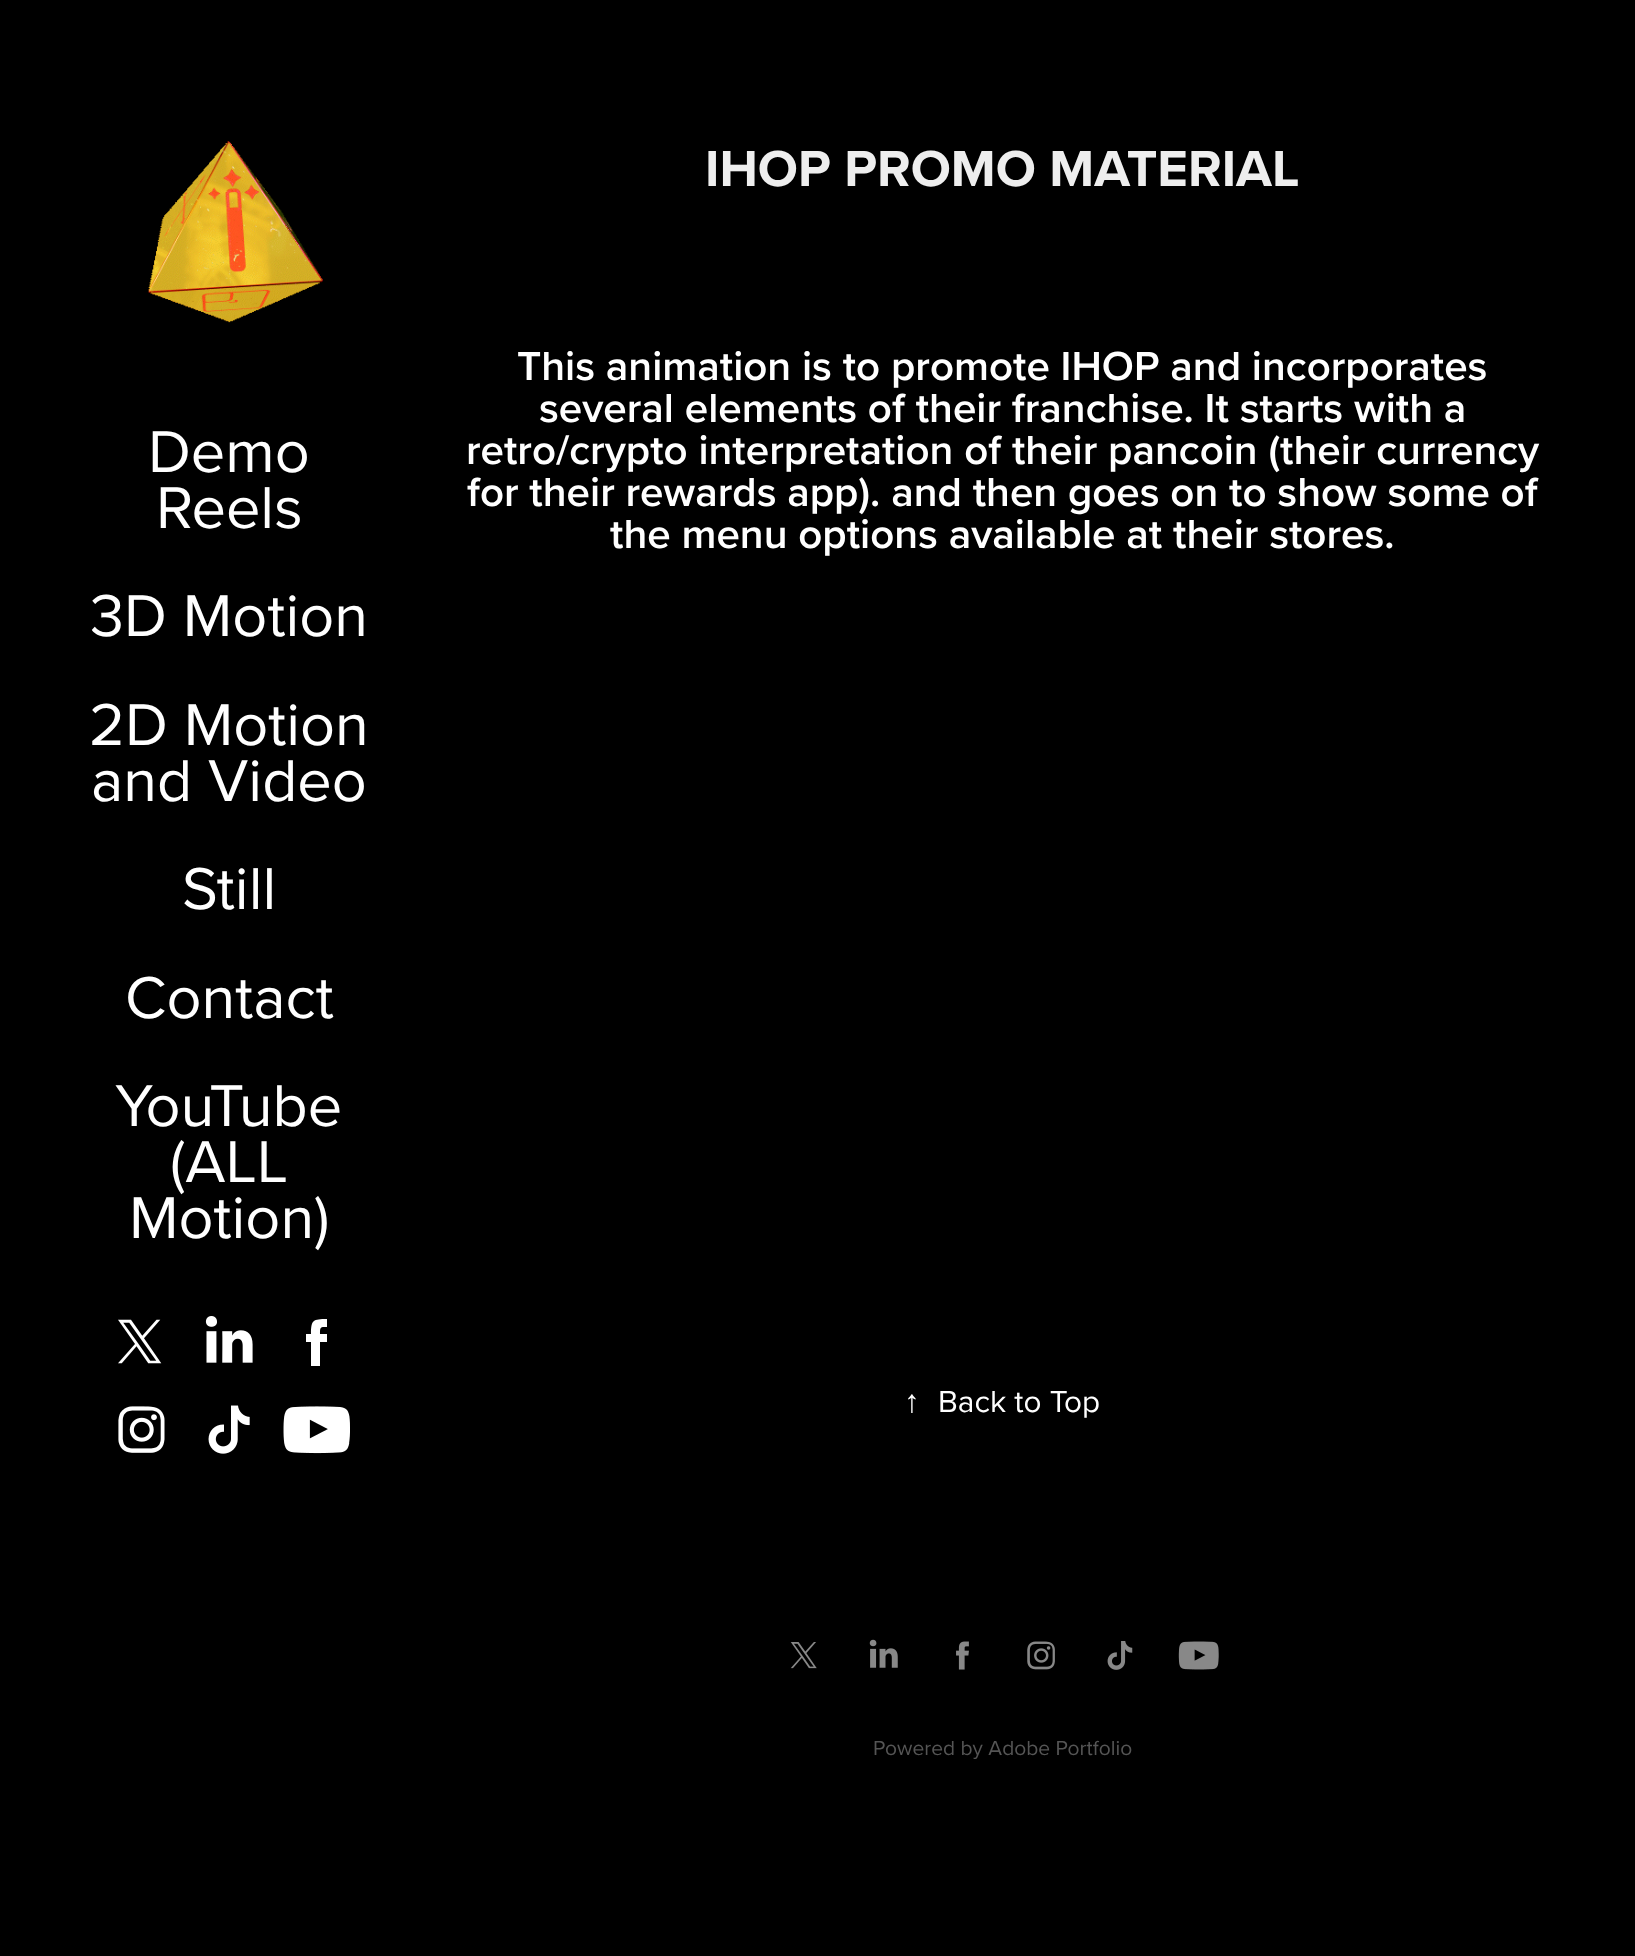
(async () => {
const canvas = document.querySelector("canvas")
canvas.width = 1635
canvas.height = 1956
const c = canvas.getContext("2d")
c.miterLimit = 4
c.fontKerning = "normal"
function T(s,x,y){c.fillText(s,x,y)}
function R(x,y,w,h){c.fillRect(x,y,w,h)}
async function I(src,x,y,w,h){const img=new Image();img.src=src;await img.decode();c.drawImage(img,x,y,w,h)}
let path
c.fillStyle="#000"
R(0,0,1635,1956)
await I("1.png",148,141,175,182)
c.font="61.25px Proxima Nova"
c.fillStyle="#fff"
T("Demo",148,472)
T("Reels",156,528)
T("3D Motion",90,636)
T("2D Motion",89,745)
T("and Video",91,801)
T("Still",182,909)
T("Contact",125,1018)
T("YouTube",115,1126)
T("(ALL",170,1182)
T("Motion)",129,1238)
await I("2.png",118,1319,44,45)
await I("3.png",205,1316,48,47)
path = new Path2D("M320 1366h-9v-24h-5v-8h5c0-14 2-15 16-15v8c-7 0-7 0-7 7h7v8h-7z")
c.fill(path)
await I("4.png",118,1406,47,47)
await I("5.png",208,1405,42,49)
await I("6.png",283,1406,67,48)
c.font="bold 52.5px Proxima Nova"
c.fillStyle="#eee"
T("IHOP PROMO MATERIAL",705,186)
c.font="600 42px Proxima Nova"
c.fillStyle="#fff"
T("This animation is to promote IHOP and incorporates",517,380)
T("several elements of their franchise. It starts with a",539,422)
T("retro/crypto interpretation of their pancoin (their currency",466,464)
T("for their rewards app). and then goes on to show some of",467,506)
T("the menu options available at their stores.",610,548)
c.font="31.5px Liberation Serif"
T("↑",904,1412)
c.font="31.5px Proxima Nova"
T("Back to Top",938,1412)
await I("7.png",790,1642,27,27)
await I("8.png",869,1639,29,29)
await I("9.png",956,1641,13,29)
await I("10.png",1027,1641,28,29)
await I("11.png",1107,1641,26,29)
await I("12.png",1178,1641,41,29)
c.font="21px Proxima Nova"
c.fillStyle="#555"
T("Powered by Adobe Portfolio",873,1755)
})()
